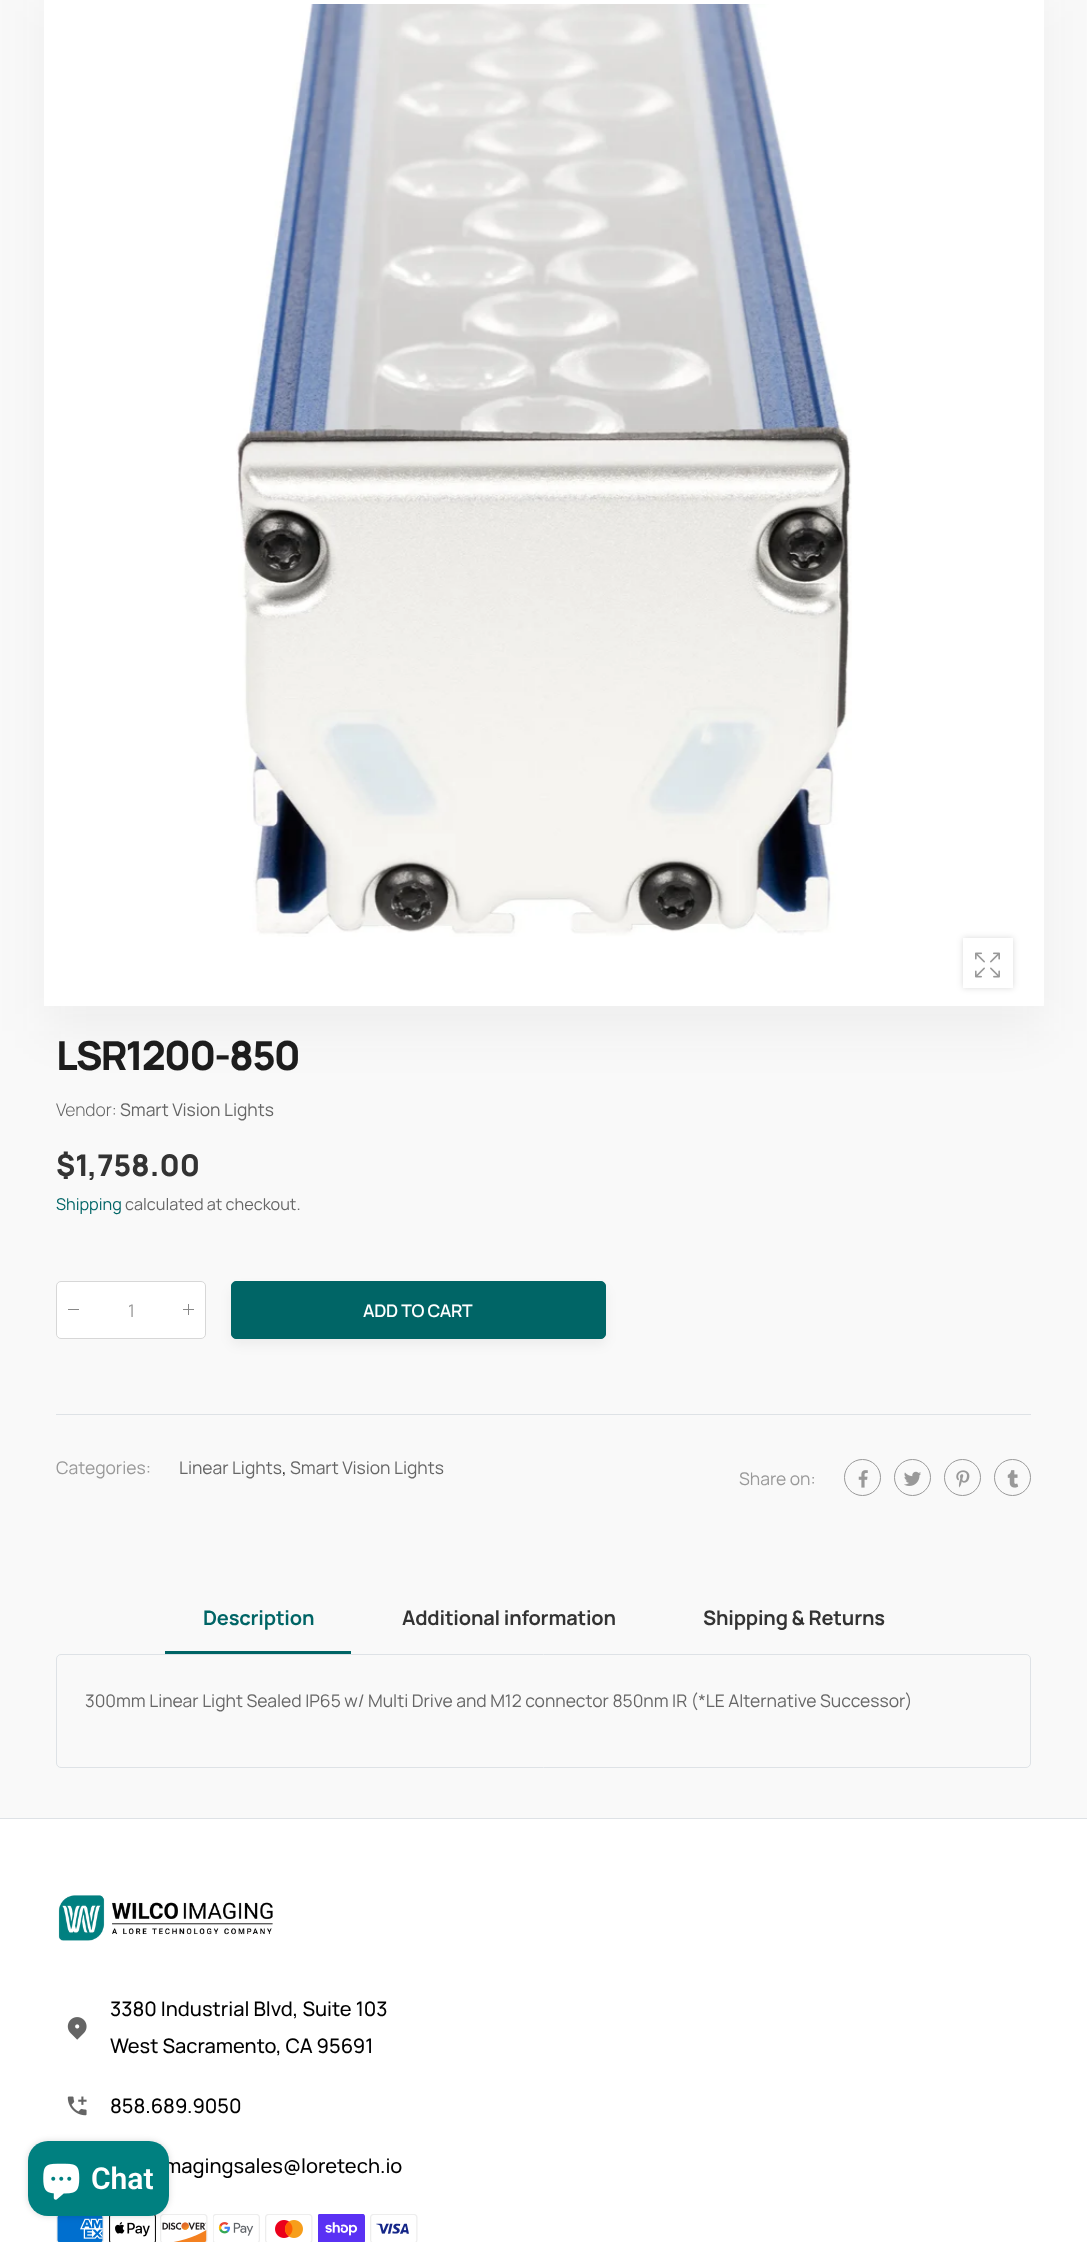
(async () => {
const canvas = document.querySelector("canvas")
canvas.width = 1087
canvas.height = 2242
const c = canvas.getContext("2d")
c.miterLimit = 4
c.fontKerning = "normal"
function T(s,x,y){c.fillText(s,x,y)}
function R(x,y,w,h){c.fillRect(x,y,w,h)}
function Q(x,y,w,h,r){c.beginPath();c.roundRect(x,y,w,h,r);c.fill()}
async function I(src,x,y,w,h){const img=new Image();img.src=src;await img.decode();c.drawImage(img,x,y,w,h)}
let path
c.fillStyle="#f9f9f9"
R(0,0,1087,2242)
c.fillStyle="#2424240d"
c.filter="blur(25px)"
c.beginPath()
c.rect(44,-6,1000,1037)
c.fill()
c.filter="none"
c.fillStyle="#fff"
Q(44,-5,1000,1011,5)
c.save()
c.beginPath()
c.rect(44,0,1000,1006)
c.clip()
path = new Path2D("M53-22h981.5v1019h-981.5z")
c.strokeStyle="#fff"
c.lineWidth=18.8
c.stroke(path)
c.restore()
await I("1.png",236,4,616,933)
c.fillStyle="#00000026"
c.filter="blur(3px)"
c.beginPath()
c.rect(963,938,50,50)
c.fill()
c.filter="none"
c.fillStyle="#fff"
R(963,938,50,50)
await I("2.png",975,952,25,26)
c.letterSpacing="-1.9px"
c.font="800 40px Manrope"
c.fillStyle="#1d1d1d"
T("LSR1200-850",56,1070)
c.letterSpacing="0px"
c.font="300 17.5px Manrope"
c.fillStyle="#666"
T("Vendor:",56,1116)
c.font="17.5px Manrope"
T("Smart Vision Lights",120,1116)
c.font="800 30px Manrope"
c.fillStyle="#333"
T("$1,758.00",56,1176)
c.font="16.25px Manrope"
c.fillStyle="#006566"
T("Shipping",56,1210)
c.fillStyle="#666"
T("calculated at checkout.",125,1210)
c.fillStyle="#fff"
c.beginPath()
c.roundRect(56.5,1281.5,149,57,4.5)
c.fill()
c.strokeStyle="#d7d7d7"
c.stroke()
c.fillStyle="#888"
R(68,1309,11,1)
c.font="17.5px Manrope"
c.fillStyle="#999"
T("1",128,1317)
c.fillStyle="#888"
R(183,1309,11,1)
R(188,1304,1,11)
c.fillStyle="#0000000d"
c.filter="blur(6px)"
c.beginPath()
c.roundRect(231,1288,375,57,5)
c.fill()
c.filter="none"
c.fillStyle="#006566"
c.beginPath()
c.roundRect(231.5,1281.5,374,57,4.5)
c.fill()
c.strokeStyle="#006566"
c.stroke()
c.letterSpacing="-0.25px"
c.font="600 17.5px Manrope"
c.fillStyle="#fff"
T("ADD TO CART",363,1317)
c.fillStyle="#dee2e6"
R(56,1414,975,1)
c.letterSpacing="0px"
c.font="17.5px Manrope"
c.fillStyle="#999"
T("Categories:",56,1474)
c.fillStyle="#666"
T("Linear Lights",179,1474)
c.fillStyle="#1d1d1d"
T(",",282,1474)
c.fillStyle="#666"
T("Smart Vision Lights",290,1474)
c.fillStyle="#999"
T("Share on:",739,1485)
c.beginPath()
c.arc(862.5,1477.5,18,0,7)
c.strokeStyle="#999"
c.stroke()
await I("3.png",858,1470,10,18)
c.beginPath()
c.arc(912.5,1477.5,18,0,7)
c.stroke()
await I("4.png",904,1471,17,15)
c.beginPath()
c.arc(962.5,1477.5,18,0,7)
c.stroke()
await I("5.png",956,1470,14,18)
c.beginPath()
c.arc(1012.5,1477.5,18,0,7)
c.stroke()
await I("6.png",1007,1470,12,18)
c.fillStyle="#006566"
R(165,1651,186,3)
c.letterSpacing="-0.2px"
c.font="bold 20px Manrope"
T("Description",203,1625)
c.fillStyle="#333"
T("Additional information",402,1625)
T("Shipping & Returns",703,1625)
c.beginPath()
c.roundRect(56.5,1654.5,974,113,4.5)
c.strokeStyle="#dee2e6"
c.stroke()
c.letterSpacing="0px"
c.font="17.5px Manrope"
c.fillStyle="#666"
T("300mm Linear Light Sealed IP65 w/ Multi Drive and M12 connector 850nm IR (*LE Alternative Successor)",85,1707)
c.fillStyle="#fff"
R(0,1819,1087,423)
c.fillStyle="#dee2e6"
R(0,1818,1087,1)
await I("7.png",58,1895,215,46)
await I("8.png",67,2017,20,23)
c.font="500 20px Manrope"
c.fillStyle="#000"
T("3380 Industrial Blvd, Suite 103",110,2016)
T("West Sacramento, CA 95691",110,2053)
await I("9.png",67,2096,20,20)
T("858.689.9050",110,2113)
T("magingsales@loretech.io",164,2173)
await I("10.png",56,2216,48,26)
await I("11.png",109,2214,47,28)
await I("12.png",160,2214,48,28)
await I("13.png",213,2214,47,28)
await I("14.png",265,2214,48,28)
await I("15.png",318,2214,47,28)
await I("16.png",370,2214,48,28)
c.fillStyle="#00000026"
c.filter="blur(3px)"
c.beginPath()
c.roundRect(28,2141,141,75,20)
c.fill()
c.filter="none"
c.fillStyle="#008080"
Q(28,2141,141,75,20)
await I("17.png",43,2163,37,37)
c.font="600 30px Roboto"
c.fillStyle="#fff"
T("Chat",91,2189)
})()
